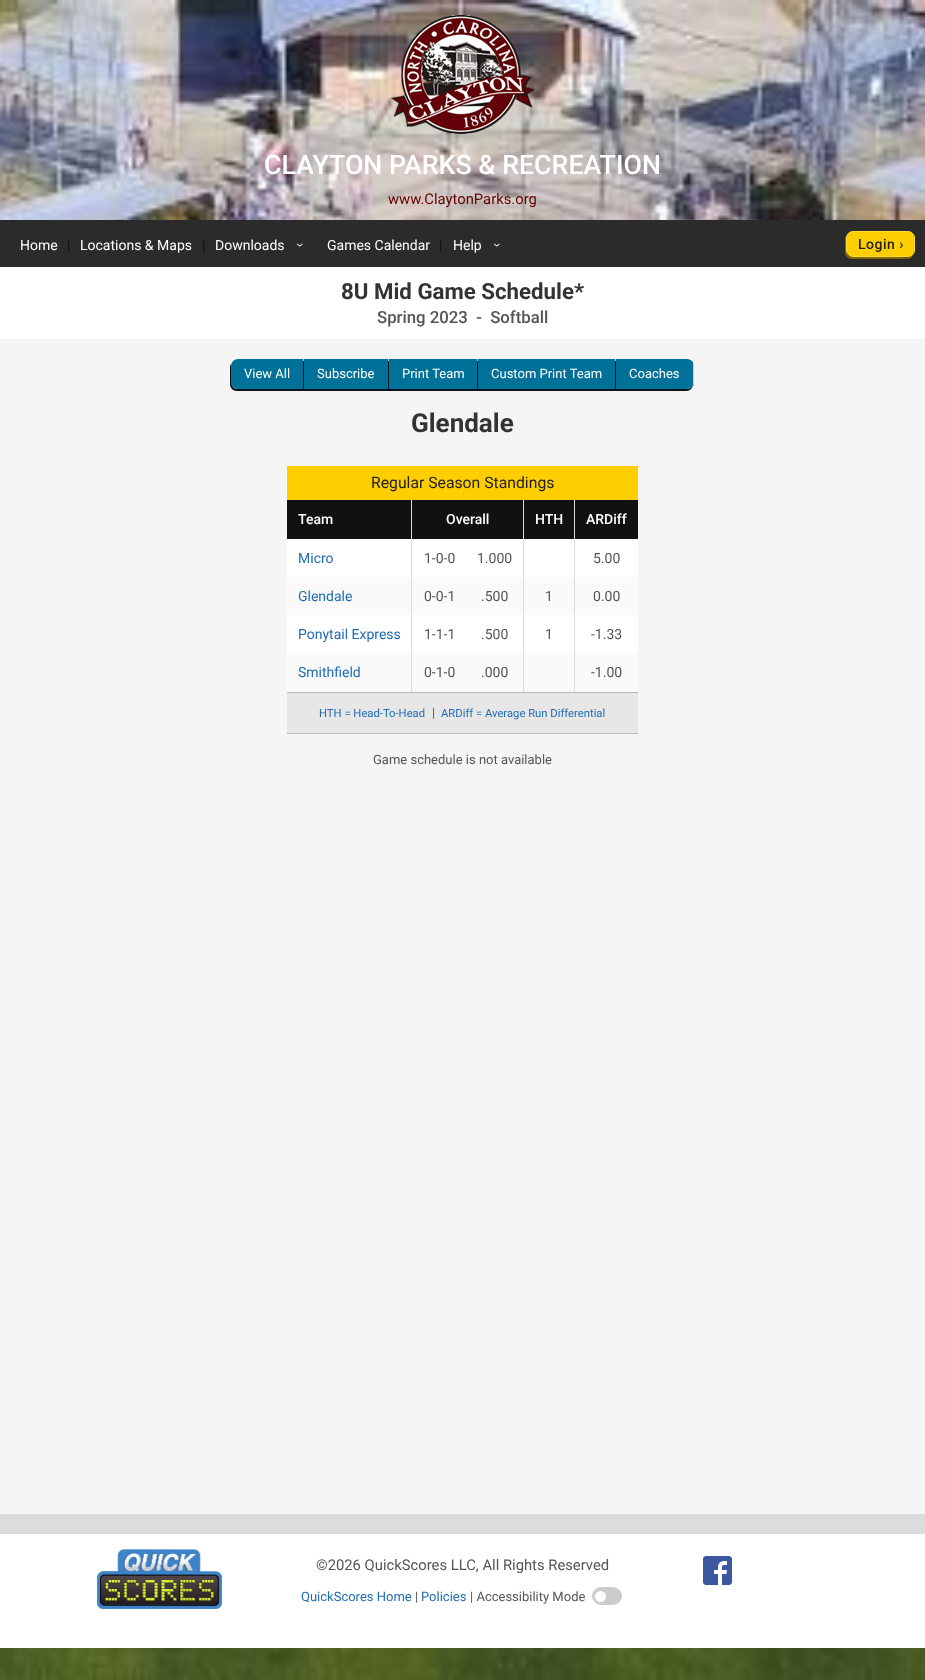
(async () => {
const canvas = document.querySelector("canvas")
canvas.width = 925
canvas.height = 1680
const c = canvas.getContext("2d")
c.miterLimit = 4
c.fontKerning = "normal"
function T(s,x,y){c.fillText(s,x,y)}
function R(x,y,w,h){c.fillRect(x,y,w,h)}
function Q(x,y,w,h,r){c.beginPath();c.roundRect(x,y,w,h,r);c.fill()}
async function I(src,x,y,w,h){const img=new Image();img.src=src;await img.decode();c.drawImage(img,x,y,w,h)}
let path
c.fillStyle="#fff"
R(0,0,925,1680)
await I("1.png",0,0,925,1680)
await I("2.png",391,15,144,119)
c.font="500 26.75px Roboto"
T("CLAYTON PARKS & RECREATION",264,174)
c.font="14.8px Roboto"
c.fillStyle="#600"
T("www.ClaytonParks.org",388,204)
c.fillStyle="#2b2b2b"
R(0,220,925,47)
c.font="14px Roboto"
c.fillStyle="#fff"
T("Home",20,250)
c.fillStyle="#111"
T("|",67,250)
c.fillStyle="#fff"
T("Locations & Maps",80,250)
c.fillStyle="#111"
T("|",202,250)
c.fillStyle="#fff"
T("Downloads",215,250)
c.save()
c.translate(296,243)
c.rotate(90 * Math.PI / 180)
c.fillText("›",0,0)
c.restore()
T("Games Calendar",327,250)
c.fillStyle="#111"
T("|",439,250)
c.fillStyle="#fff"
T("Help",453,250)
c.save()
c.translate(493,243)
c.rotate(90 * Math.PI / 180)
c.fillText("›",0,0)
c.restore()
c.fillStyle="#806700"
path = new Path2D("M846 236c-1 1-1 2-1 4v12c0 4 3 7 7 7h55c3 0 6-2 7-5c-4 5-11 3-15 3h-37c-11 0-16 2-16-11z")
c.fill(path)
c.fillStyle="#ffce00"
c.beginPath()
c.roundRect(846.5,231.5,68,25,6.5)
c.fill()
c.strokeStyle="#ffd833"
c.stroke()
c.letterSpacing="0.5px"
c.font="500 14px Roboto"
c.fillStyle="#222"
T("Login ›",858,249)
c.fillStyle="#fff"
R(0,267,925,72)
c.letterSpacing="0px"
c.font="bold 22.25px Roboto"
c.fillStyle="#333"
T("8U Mid Game Schedule*",341,299)
c.font="500 16.75px Roboto"
c.fillStyle="#555"
T("Spring 2023  -  Softball",377,323)
c.fillStyle="#f5f5f5"
R(0,339,925,1175)
c.fillStyle="#001219"
path = new Path2D("M231 364c-1 1-1 2-1 4v16c0 4 3 7 7 7h66v-2h-54c-14 0-18 2-18-12z")
c.fill(path)
c.fillStyle="#007198"
c.beginPath()
c.roundRect(231,359,73,30,[7,0,0,7])
c.fill()
c.fillStyle="#ccc"
R(303,359,1,2)
c.font="13px Roboto"
c.fillStyle="#fff"
T("View All",244,378)
c.fillStyle="#001219"
path = new Path2D("M303 361v30h85v-2h-84v-28z")
c.fill(path)
c.fillStyle="#007198"
R(304,359,84,30)
c.fillStyle="#ccc"
R(388,359,1,2)
c.fillStyle="#fff"
T("Subscribe",317,378)
c.fillStyle="#001219"
path = new Path2D("M388 361v30h89v-2h-88v-28z")
c.fill(path)
c.fillStyle="#007198"
R(389,359,88,30)
c.fillStyle="#ccc"
R(477,359,1,2)
c.fillStyle="#fff"
T("Print Team",402,378)
c.fillStyle="#001219"
path = new Path2D("M477 361v30h138v-2h-137v-28z")
c.fill(path)
c.fillStyle="#007198"
R(478,359,137,30)
c.fillStyle="#ccc"
R(615,359,1,2)
c.fillStyle="#fff"
T("Custom Print Team",491,378)
c.fillStyle="#001219"
path = new Path2D("M615 361v30h71c3 0 6-2 7-5c-2 2-4 3-6 3h-71v-28z")
c.fill(path)
c.fillStyle="#007198"
c.beginPath()
c.roundRect(616,359,78,30,[0,7,7,0])
c.fill()
c.fillStyle="#ccc"
R(693,363,1,23)
c.fillStyle="#fff"
T("Coaches",629,378)
c.font="bold 26px Roboto"
c.fillStyle="#333"
T("Glendale",411,432)
c.fillStyle="#fff"
R(287,539,351,114)
c.fillStyle="#ffce00"
R(287,466,351,34)
c.font="15.75px Roboto"
c.fillStyle="#222"
T("Regular Season Standings",371,488)
c.fillStyle="#111"
R(287,500,124,39)
c.fillStyle="#dcdcdc"
R(411,500,1,77)
c.font="500 14px Roboto"
c.fillStyle="#fff"
T("Team",298,524)
c.fillStyle="#111"
R(412,500,111,39)
c.fillStyle="#dcdcdc"
R(523,500,1,77)
c.fillStyle="#fff"
T("Overall",446,524)
c.fillStyle="#111"
R(524,500,50,39)
c.fillStyle="#dcdcdc"
R(574,500,1,77)
c.fillStyle="#fff"
T("HTH",535,524)
c.fillStyle="#111"
R(575,500,63,39)
c.fillStyle="#fff"
T("ARDiff",586,524)
c.font="14px Roboto"
c.fillStyle="#1f6bb6"
T("Micro",298,563)
c.fillStyle="#555"
T("1-0-0",424,563)
T("1.000",477,563)
T("5.00",593,563)
c.fillStyle="#fafafa"
R(287,577,351,38)
c.fillStyle="#dcdcdc"
R(411,577,1,76)
c.fillStyle="#1f6bb6"
T("Glendale",298,601)
c.fillStyle="#555"
T("0-0-1",424,601)
c.fillStyle="#dcdcdc"
R(523,577,1,76)
c.fillStyle="#555"
T(".500",481,601)
c.fillStyle="#dcdcdc"
R(574,577,1,76)
c.fillStyle="#555"
T("1",545,601)
T("0.00",593,601)
c.fillStyle="#1f6bb6"
T("Ponytail Express",298,639)
c.fillStyle="#555"
T("1-1-1",424,639)
T(".500",481,639)
T("1",545,639)
T("-1.33",591,639)
c.fillStyle="#fafafa"
R(287,653,351,39)
c.fillStyle="#dcdcdc"
R(411,653,1,39)
c.fillStyle="#1f6bb6"
T("Smithfield",298,677)
c.fillStyle="#555"
T("0-1-0",424,677)
c.fillStyle="#dcdcdc"
R(523,653,1,39)
c.fillStyle="#555"
T(".000",481,677)
c.fillStyle="#dcdcdc"
R(574,653,1,39)
c.fillStyle="#555"
T("-1.00",591,677)
c.fillStyle="#e7e7e7"
R(287,693,351,40)
c.fillStyle="#bbb"
R(287,692,351,1)
R(287,733,351,1)
c.font="11.25px Roboto"
c.fillStyle="#1f6bb6"
T("HTH = Head-To-Head",319,717)
c.font="13px Roboto"
c.fillStyle="#555"
T("|",432,717)
c.font="11.25px Roboto"
c.fillStyle="#1f6bb6"
T("ARDiff = Average Run Differential",441,717)
c.font="13px Roboto"
c.fillStyle="#555"
T("Game schedule is not available",373,764)
c.fillStyle="#fff"
R(0,1534,925,114)
c.fillStyle="#dcdcdc"
R(0,1514,925,20)
await I("3.png",97,1549,125,60)
c.font="14.8px Roboto"
c.fillStyle="#555"
T("©2026 QuickScores LLC, All Rights Reserved",316,1570)
c.font="13px Roboto"
c.fillStyle="#1f6bb6"
T("QuickScores Home",301,1601)
c.fillStyle="#555"
T("|",415,1601)
c.fillStyle="#1f6bb6"
T("Policies",421,1601)
c.fillStyle="#555"
T("| Accessibility Mode",470,1601)
c.fillStyle="#ccc"
Q(592,1587,30,18,9)
c.fillStyle="#fff"
c.beginPath()
c.arc(600.5,1596.5,5.5,0,7)
c.fill()
await I("4.png",703,1556,29,29)
})()
